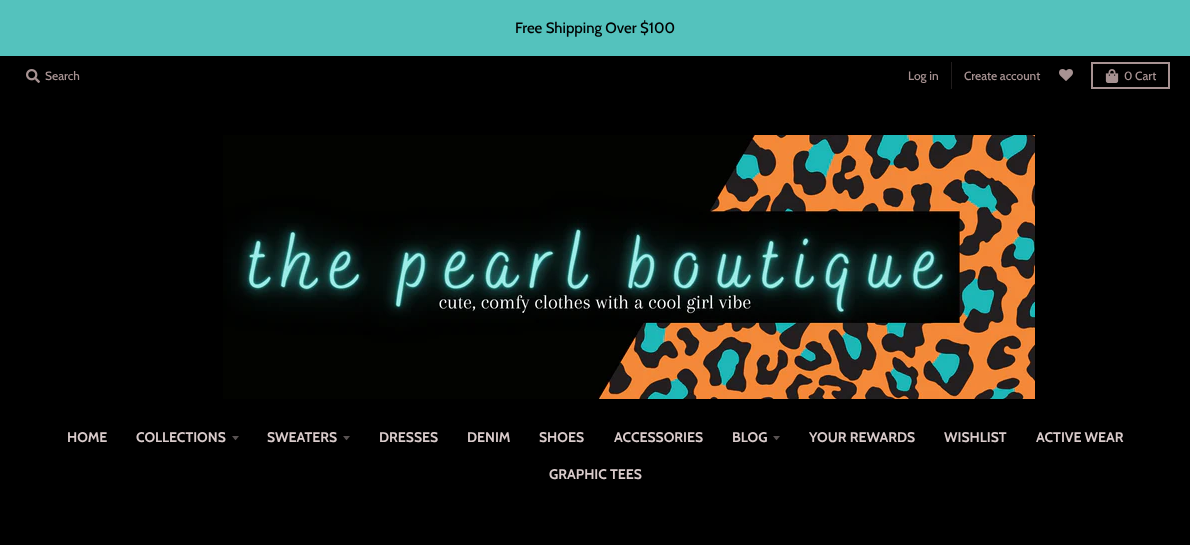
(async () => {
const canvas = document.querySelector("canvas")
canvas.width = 1190
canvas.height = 545
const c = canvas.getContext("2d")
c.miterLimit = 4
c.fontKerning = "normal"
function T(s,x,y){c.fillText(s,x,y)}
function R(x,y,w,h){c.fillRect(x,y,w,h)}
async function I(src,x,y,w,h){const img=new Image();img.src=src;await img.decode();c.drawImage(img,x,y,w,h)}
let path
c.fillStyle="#000"
R(0,0,1190,545)
c.fillStyle="#54c2bd"
R(0,0,1190,56)
c.font="500 15px Cabin"
c.fillStyle="#000202"
T("Free Shipping Over $100",515,33)
await I("1.png",26,69,14,14)
c.font="500 12px Cabin"
c.fillStyle="#a79292"
T("Search",45,80)
c.fillStyle="#211d1d"
R(951,62,1,27)
c.fillStyle="#a79292"
T("Log in",908,80)
T("Create account",964,80)
await I("2.png",1059,69,14,12)
c.strokeStyle="#a79292"
c.lineWidth=2
c.strokeRect(1092,63,77,25)
await I("3.png",1105,69,14,14)
T("0 Cart",1124,80)
await I("4.png",223,135,812,264)
c.font="bold 14px Cabin"
c.fillStyle="#d9cbcb"
T("HOME",67,442)
T("COLLECTIONS",136,442)
c.fillStyle="#575151"
path = new Path2D("M232 436c4.5 5.5 2.5 5.5 7 0z")
c.fill(path)
c.fillStyle="#d9cbcb"
T("SWEATERS",267,442)
c.fillStyle="#575151"
path = new Path2D("M343 436c4.5 5.5 2.5 5.5 7 0z")
c.fill(path)
c.fillStyle="#d9cbcb"
T("DRESSES",379,442)
T("DENIM",467,442)
T("SHOES",539,442)
T("ACCESSORIES",614,442)
T("BLOG",732,442)
c.fillStyle="#575151"
path = new Path2D("M773 436c4.5 5.5 2.5 5.5 7 0z")
c.fill(path)
c.fillStyle="#d9cbcb"
T("YOUR REWARDS",809,442)
T("WISHLIST",944,442)
T("ACTIVE WEAR",1036,442)
T("GRAPHIC TEES",549,479)
})()
